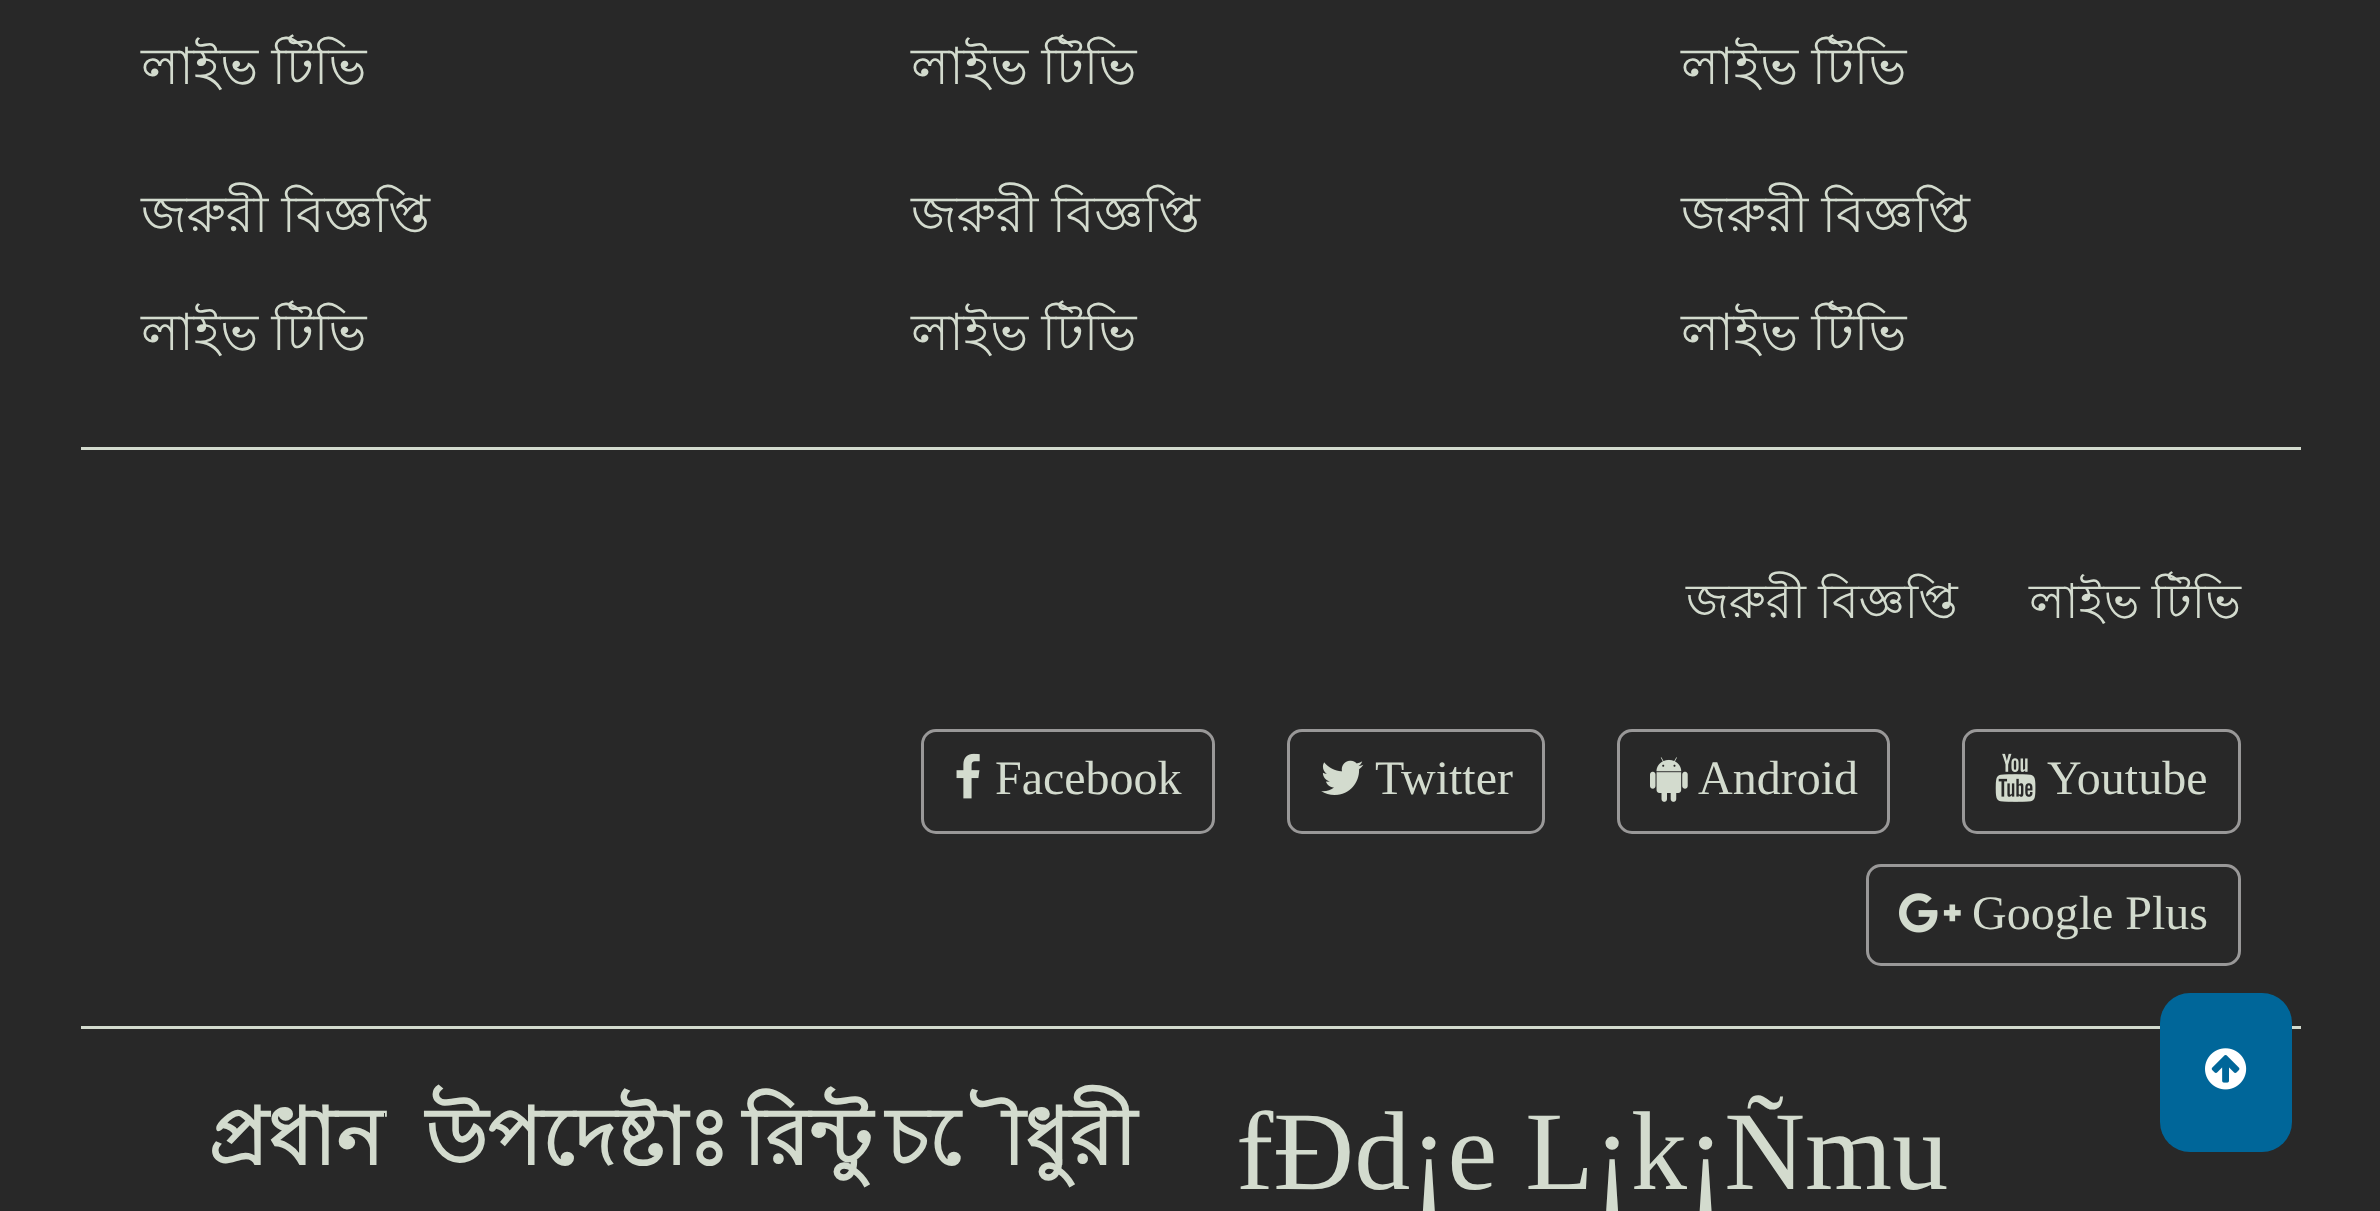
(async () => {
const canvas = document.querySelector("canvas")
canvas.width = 2380
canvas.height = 1211
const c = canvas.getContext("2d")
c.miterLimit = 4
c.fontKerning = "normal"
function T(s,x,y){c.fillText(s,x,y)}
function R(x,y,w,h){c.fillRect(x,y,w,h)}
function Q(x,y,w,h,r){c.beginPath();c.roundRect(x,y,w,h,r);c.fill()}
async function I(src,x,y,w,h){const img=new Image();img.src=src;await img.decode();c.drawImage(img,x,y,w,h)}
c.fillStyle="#282828"
R(0,0,2380,1211)
c.fillStyle="#d3dbce"
R(81,447,2220,3)
c.wordSpacing="-1px"
c.font="51px Lohit Bengali"
T("লাইভ টিভি",141,84)
T("লাইভ টিভি",911,84)
T("লাইভ টিভি",1681,84)
T("জরুরী বিজ্ঞপ্তি",141,232)
T("লাইভ টিভি",141,350)
T("জরুরী বিজ্ঞপ্তি",911,232)
T("লাইভ টিভি",911,350)
T("জরুরী বিজ্ঞপ্তি",1681,232)
T("লাইভ টিভি",1681,350)
R(81,1026,2220,3)
c.font="48px Lohit Bengali"
T("জরুরী বিজ্ঞপ্তি",1686,618)
T("লাইভ টিভি",2029,618)
c.beginPath()
c.roundRect(922.5,730.5,291,102,13.5)
c.strokeStyle="#999898"
c.lineWidth=3
c.stroke()
await I("1.png",956,753,24,46)
c.wordSpacing="0px"
c.font="48px Liberation Serif"
T("Facebook",995,794)
c.beginPath()
c.roundRect(1288.5,730.5,255,102,13.5)
c.stroke()
await I("2.png",1321,760,43,35)
T("Twitter",1375,794)
c.beginPath()
c.roundRect(1618.5,730.5,270,102,13.5)
c.stroke()
await I("3.png",1650,757,38,45)
T("Android",1698,794)
c.beginPath()
c.roundRect(1963.5,730.5,276,102,13.5)
c.stroke()
await I("4.png",1995,753,41,49)
T("Youtube",2047,794)
c.beginPath()
c.roundRect(1867.5,865.5,372,99,13.5)
c.stroke()
await I("5.png",1899,893,62,40)
T("Google Plus",1972,929)
c.font="bold 80px Lohit Bengali"
T("প্রধান",208,1165)
T("উপদেষ্টাঃ",425,1165)
T("রিন্টু",742,1165)
T("চৌধুরী",885,1165)
c.fillStyle="#282828"
R(384,1113,1,4)
c.font="112px Liberation Serif"
c.fillStyle="#d3dbce"
T("fÐd¡e L¡k¡Ñmu",1236,1189)
c.fillStyle="#069"
Q(2160,993,132,159,30)
await I("6.png",2205,1048,42,42)
})()
